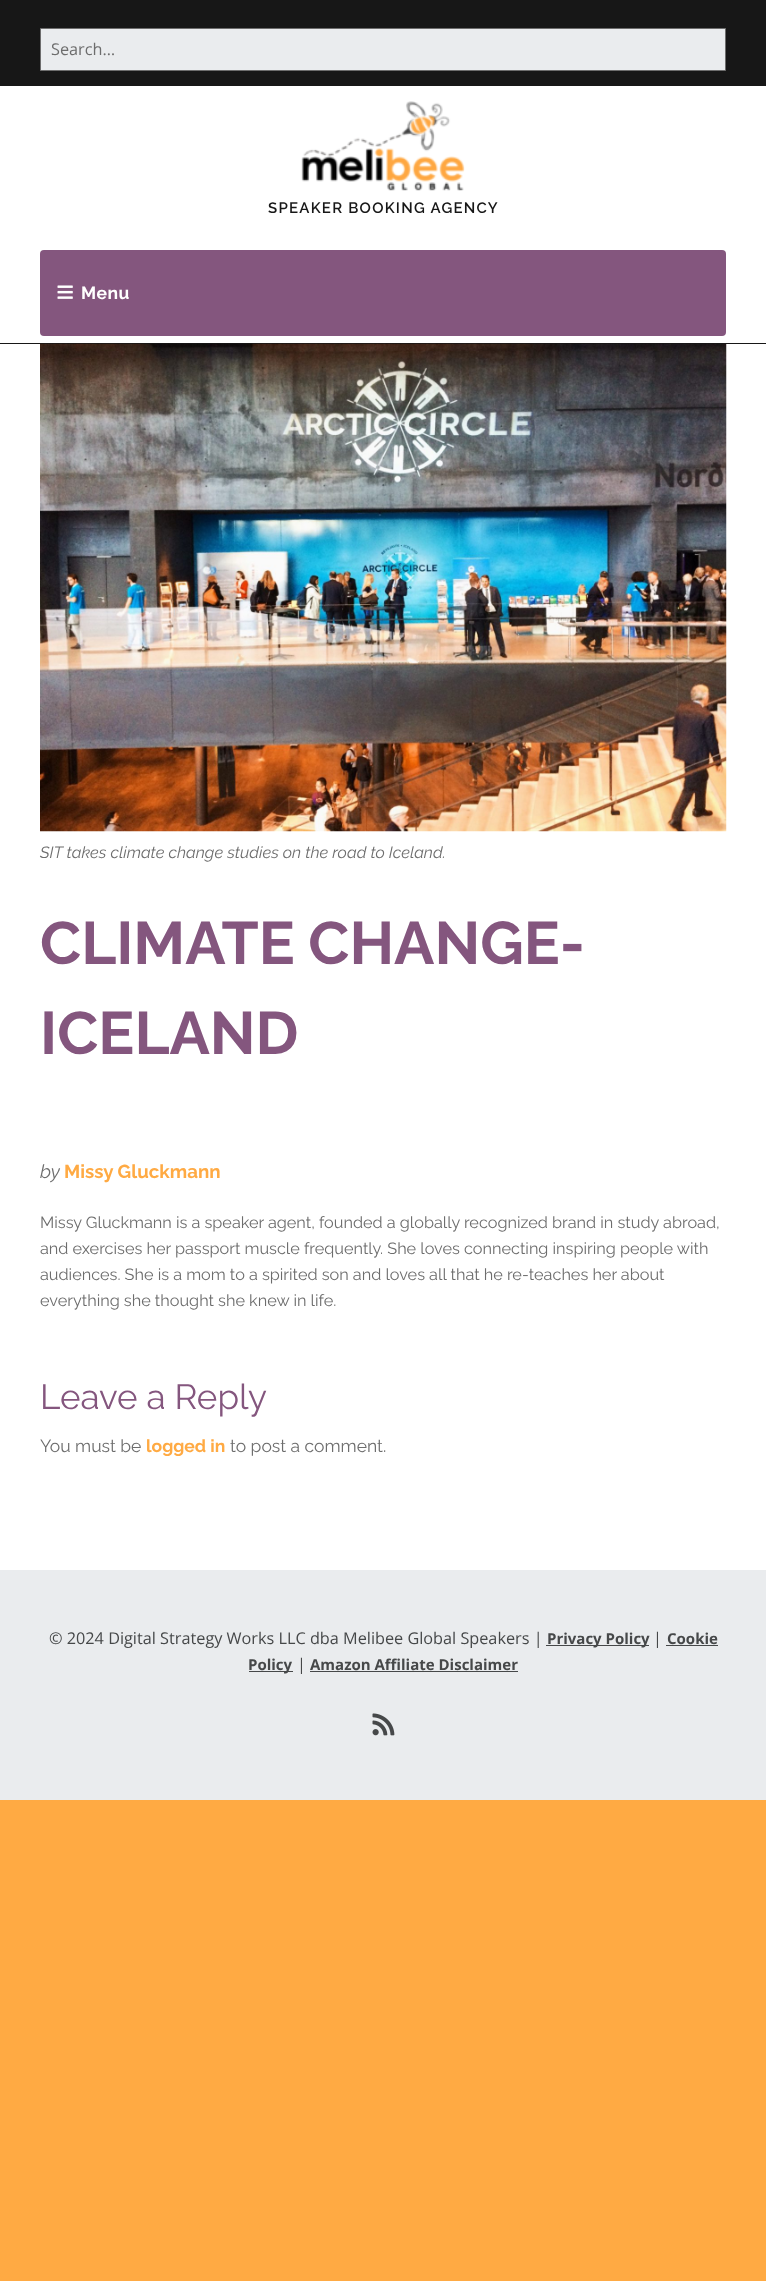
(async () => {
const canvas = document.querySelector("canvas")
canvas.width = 766
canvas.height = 2281
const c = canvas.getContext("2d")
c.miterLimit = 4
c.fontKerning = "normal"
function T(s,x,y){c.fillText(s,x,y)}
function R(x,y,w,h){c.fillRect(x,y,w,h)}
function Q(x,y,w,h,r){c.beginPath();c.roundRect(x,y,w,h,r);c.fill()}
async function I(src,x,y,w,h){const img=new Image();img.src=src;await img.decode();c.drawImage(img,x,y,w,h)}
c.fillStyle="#ffaa43"
R(0,0,766,2281)
c.fillStyle="#171717"
R(0,0,766,86)
c.fillStyle="#eaecee"
c.beginPath()
c.rect(40.5,28.5,685,42)
c.fill()
c.strokeStyle="#6d6d6d"
c.stroke()
c.font="16.25px Open Sans"
c.fillStyle="#6d6d6d"
T("Search…",51,55)
c.fillStyle="#fff"
R(0,86,766,257)
c.fillStyle="#171717"
R(0,343,766,1)
await I("1.png",301,101,164,90)
c.letterSpacing="1.25px"
c.font="600 15px Raleway"
T("SPEAKER BOOKING AGENCY",268,213)
c.fillStyle="#84567e"
Q(40,250,686,86,4)
await I("2.png",57,285,16,14)
c.letterSpacing="0.5px"
c.font="bold 17.5px Raleway"
c.fillStyle="#fff"
T("Menu",81,299)
R(0,344,766,1226)
await I("3.png",40,343,687,489)
c.letterSpacing="0px"
c.font="italic 16.25px Raleway"
c.fillStyle="#6d6d6d"
T("SIT takes climate change studies on the road to Iceland.",40,858)
c.wordSpacing="-1px"
c.font="bold 60px Raleway"
c.fillStyle="#84567e"
T("CLIMATE CHANGE-",40,964)
c.wordSpacing="0px"
T("ICELAND",40,1054)
c.font="italic 18.75px Raleway"
c.fillStyle="#6d6d6d"
T("by",40,1178)
c.font="bold 18.75px Raleway"
c.fillStyle="#ffaa43"
T("Missy Gluckmann",64,1178)
c.font="16.25px Raleway"
c.fillStyle="#6d6d6d"
T("Missy Gluckmann is a speaker agent, founded a globally recognized brand in study abroad,",40,1228)
T("and exercises her passport muscle frequently. She loves connecting inspiring people with",40,1254)
T("audiences. She is a mom to a spirited son and loves all that he re-teaches her about",40,1280)
T("everything she thought she knew in life.",40,1306)
c.font="35px Raleway"
c.fillStyle="#84567e"
T("Leave a Reply",40,1409)
c.font="17.5px Raleway"
c.fillStyle="#6d6d6d"
T("You must be",40,1452)
c.font="bold 17.5px Raleway"
c.fillStyle="#ffaa43"
T("logged in",146,1452)
c.font="17.5px Raleway"
c.fillStyle="#6d6d6d"
T("to post a comment.",230,1452)
c.fillStyle="#eaecee"
R(0,1570,766,230)
c.font="16.25px Open Sans"
c.fillStyle="#464849"
T("© 2024 Digital Strategy Works LLC dba Melibee Global Speakers |",49,1644)
R(546,1645,103,1)
c.font="bold 15px Open Sans"
T("Privacy Policy",547,1644)
c.font="16.25px Open Sans"
T("|",653,1644)
c.font="bold 15px Open Sans"
T("Cookie",667,1644)
R(666,1645,52,1)
R(249,1671,44,1)
T("Policy",248,1670)
c.font="16.25px Open Sans"
T("|",297,1670)
c.font="bold 15px Open Sans"
T("Amazon Affiliate Disclaimer",310,1670)
R(310,1671,208,1)
await I("4.png",372,1713,23,23)
})()
